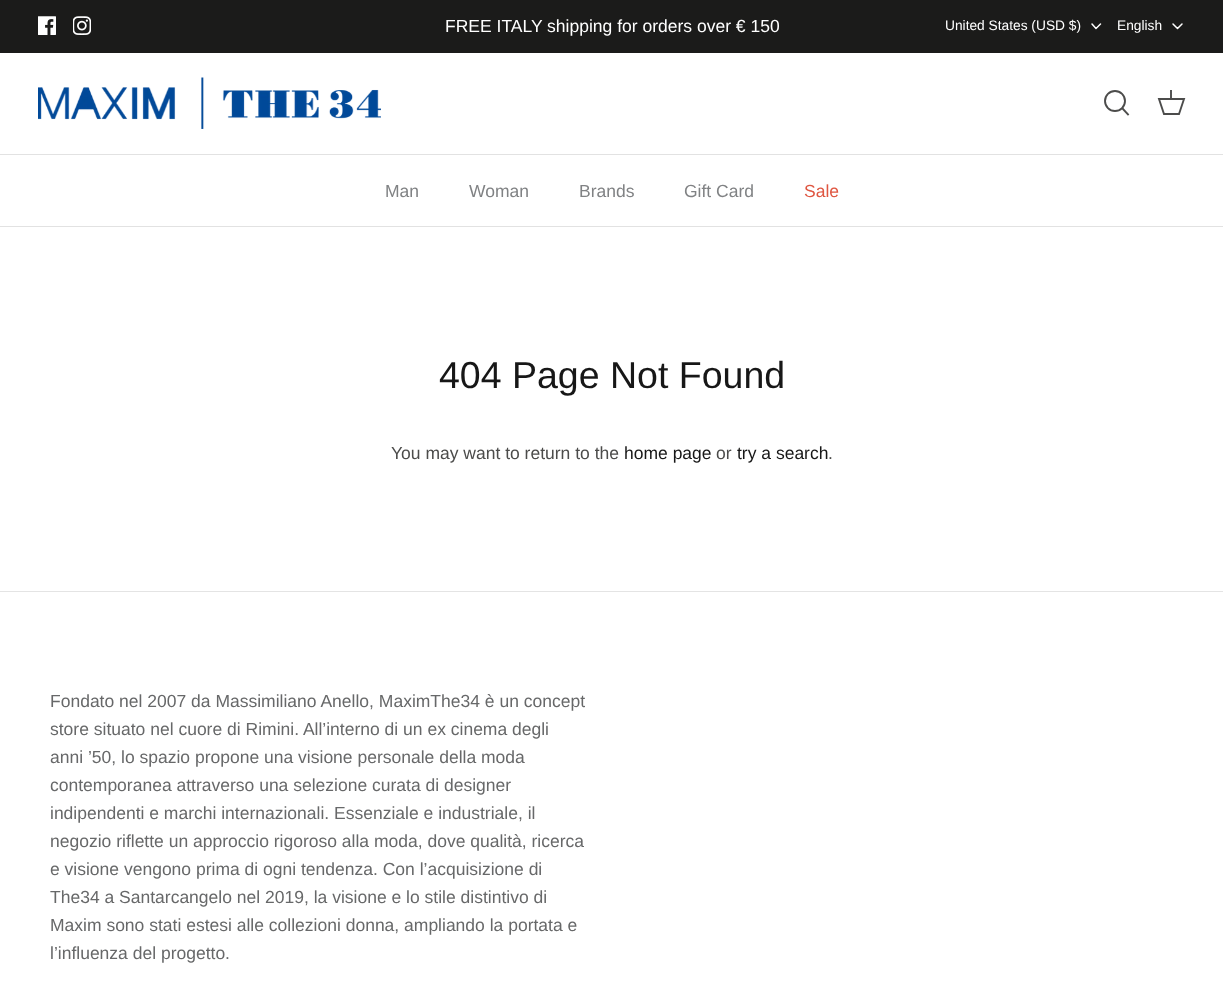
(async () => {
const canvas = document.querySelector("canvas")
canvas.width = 1223
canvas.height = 1002
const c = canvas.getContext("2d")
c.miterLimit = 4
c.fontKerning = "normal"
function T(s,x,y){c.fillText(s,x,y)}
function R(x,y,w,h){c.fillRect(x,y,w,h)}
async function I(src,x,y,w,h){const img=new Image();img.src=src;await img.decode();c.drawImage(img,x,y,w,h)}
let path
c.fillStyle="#fff"
R(0,0,1223,1002)
c.fillStyle="#1b1b1a"
R(0,0,1223,53)
await I("1.png",38,16,18,19)
await I("2.png",73,16,18,19)
c.font="17.5px Liberation Sans"
c.fillStyle="#fff"
T("FREE ITALY shipping for orders over € 150",445,32)
c.font="13.75px Liberation Sans"
T("United States (USD $)",945,30)
path = new Path2D("M1092 24l4 4.5l4.5-4.5")
c.strokeStyle="#fff"
c.lineWidth=1.5
c.lineCap="round"
c.lineJoin="round"
c.stroke(path)
T("English",1117,30)
path = new Path2D("M1173 24l4.5 4.5l4.5-4.5")
c.stroke(path)
c.fillStyle="#e2e2e2"
R(0,154,1223,1)
await I("3.png",38,77,343,52)
c.beginPath()
c.arc(1115,101,10,0,7)
c.strokeStyle="#4c4c4b"
c.lineWidth=1.9
c.stroke()
path = new Path2D("M1122.5 108.5l5.5 6")
c.lineCap="square"
c.lineJoin="miter"
c.stroke(path)
path = new Path2D("M1159 99h25l-5 15h-15z")
c.lineCap="butt"
c.stroke(path)
c.fillStyle="#4c4c4bf2"
R(1170,90,2,10)
c.fillStyle="#e2e2e2"
R(0,226,1223,1)
c.font="17.5px Liberation Sans"
c.fillStyle="#808284"
T("Man",385,197)
T("Woman",469,197)
T("Brands",579,197)
T("Gift Card",684,197)
c.fillStyle="#df5641"
T("Sale",804,197)
c.font="37.5px Liberation Sans"
c.fillStyle="#171717"
T("404 Page Not Found",439,388)
c.font="17.5px Liberation Sans"
c.fillStyle="#4c4c4b"
T("You may want to return to the",391,459)
c.fillStyle="#171717"
T("home page",624,459)
c.fillStyle="#4c4c4b"
T("or",716,459)
c.fillStyle="#171717"
T("try a search",737,459)
c.fillStyle="#4c4c4b"
T(".",828,459)
c.fillStyle="#e4e4e4"
R(0,591,1223,1)
c.fillStyle="#676869"
T("Fondato nel 2007 da Massimiliano Anello, MaximThe34 è un concept",50,707)
T("store situato nel cuore di Rimini. All’interno di un ex cinema degli",50,735)
T("anni ’50, lo spazio propone una visione personale della moda",50,763)
T("contemporanea attraverso una selezione curata di designer",50,791)
T("indipendenti e marchi internazionali. Essenziale e industriale, il",50,819)
T("negozio riflette un approccio rigoroso alla moda, dove qualità, ricerca",50,847)
T("e visione vengono prima di ogni tendenza. Con l’acquisizione di",50,875)
T("The34 a Santarcangelo nel 2019, la visione e lo stile distintivo di",50,903)
T("Maxim sono stati estesi alle collezioni donna, ampliando la portata e",50,931)
T("l’influenza del progetto.",50,959)
})()
